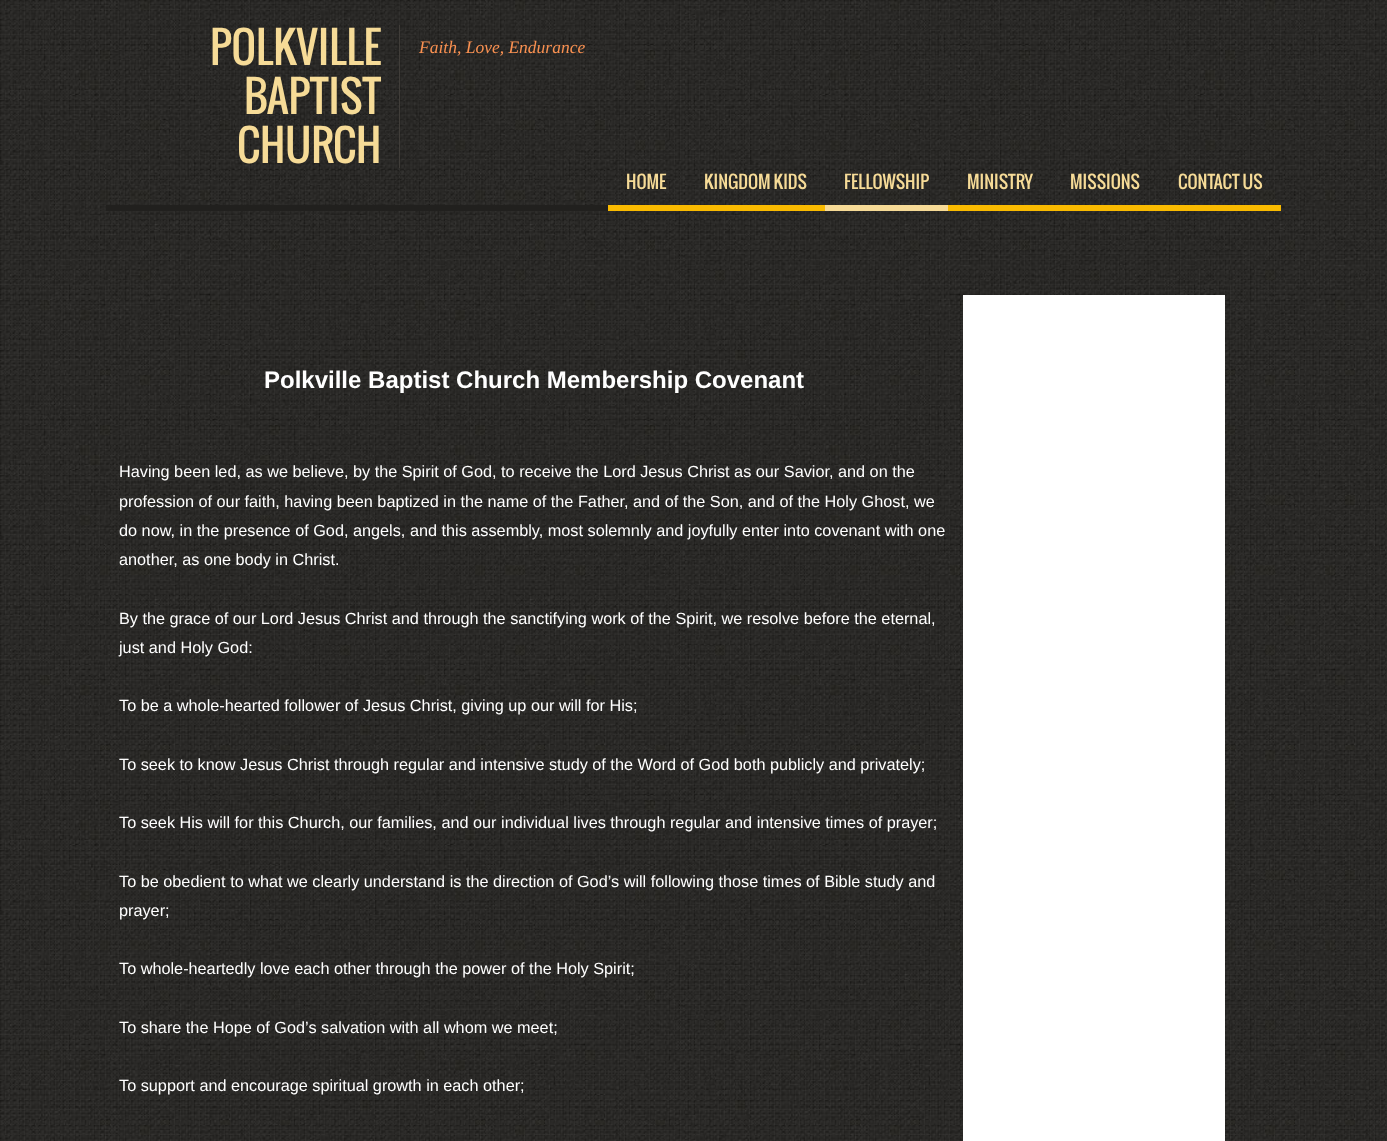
(async () => {
const canvas = document.querySelector("canvas")
canvas.width = 1387
canvas.height = 1141
const c = canvas.getContext("2d")
c.miterLimit = 4
c.fontKerning = "normal"
function T(s,x,y){c.fillText(s,x,y)}
function R(x,y,w,h){c.fillRect(x,y,w,h)}
async function I(src,x,y,w,h){const img=new Image();img.src=src;await img.decode();c.drawImage(img,x,y,w,h)}
c.fillStyle="#fff"
R(0,0,1387,1141)
await I("1.png",0,0,1387,1141)
c.fillStyle="#403d39"
R(399,25,1,143)
c.font="42.5px Oswald"
c.fillStyle="#f6db97"
T("POLKVILLE",210,65)
T("BAPTIST",244,114)
T("CHURCH",237,163)
c.font="italic 17.5px Liberation Serif"
c.fillStyle="#fa9151"
T("Faith, Love, Endurance",419,53)
c.fillStyle="#21201e"
R(106,205,502,6)
c.fillStyle="#f9ba00"
R(608,205,217,6)
c.font="17.5px Oswald"
c.fillStyle="#f6db97"
T("HOME",626,189)
T("KINGDOM KIDS",704,189)
c.fillStyle="#f6da96"
R(825,205,123,6)
c.fillStyle="#f6db97"
T("FELLOWSHIP",844,189)
c.fillStyle="#f9ba00"
R(948,205,333,6)
c.fillStyle="#f6db97"
T("MINISTRY",967,189)
T("MISSIONS",1070,189)
T("CONTACT US",1178,189)
c.font="bold 24px Liberation Sans"
c.fillStyle="#fff"
T("Polkville Baptist Church Membership Covenant",264,388)
R(963,295,262,846)
c.font="16.25px Liberation Sans"
T("Having been led, as we believe, by the Spirit of God, to receive the Lord Jesus Christ as our Savior, and on the",119,477)
T("profession of our faith, having been baptized in the name of the Father, and of the Son, and of the Holy Ghost, we",119,507)
T("do now, in the presence of God, angels, and this assembly, most solemnly and joyfully enter into covenant with one",119,536)
T("another, as one body in Christ.",119,565)
T("By the grace of our Lord Jesus Christ and through the sanctifying work of the Spirit, we resolve before the eternal,",119,624)
T("just and Holy God:",119,653)
T("To be a whole-hearted follower of Jesus Christ, giving up our will for His;",119,711)
T("To seek to know Jesus Christ through regular and intensive study of the Word of God both publicly and privately;",119,770)
T("To seek His will for this Church, our families, and our individual lives through regular and intensive times of prayer;",119,828)
T("To be obedient to what we clearly understand is the direction of God’s will following those times of Bible study and",119,887)
T("prayer;",119,916)
T("To whole-heartedly love each other through the power of the Holy Spirit;",119,974)
T("To share the Hope of God’s salvation with all whom we meet;",119,1033)
T("To support and encourage spiritual growth in each other;",119,1091)
})()
